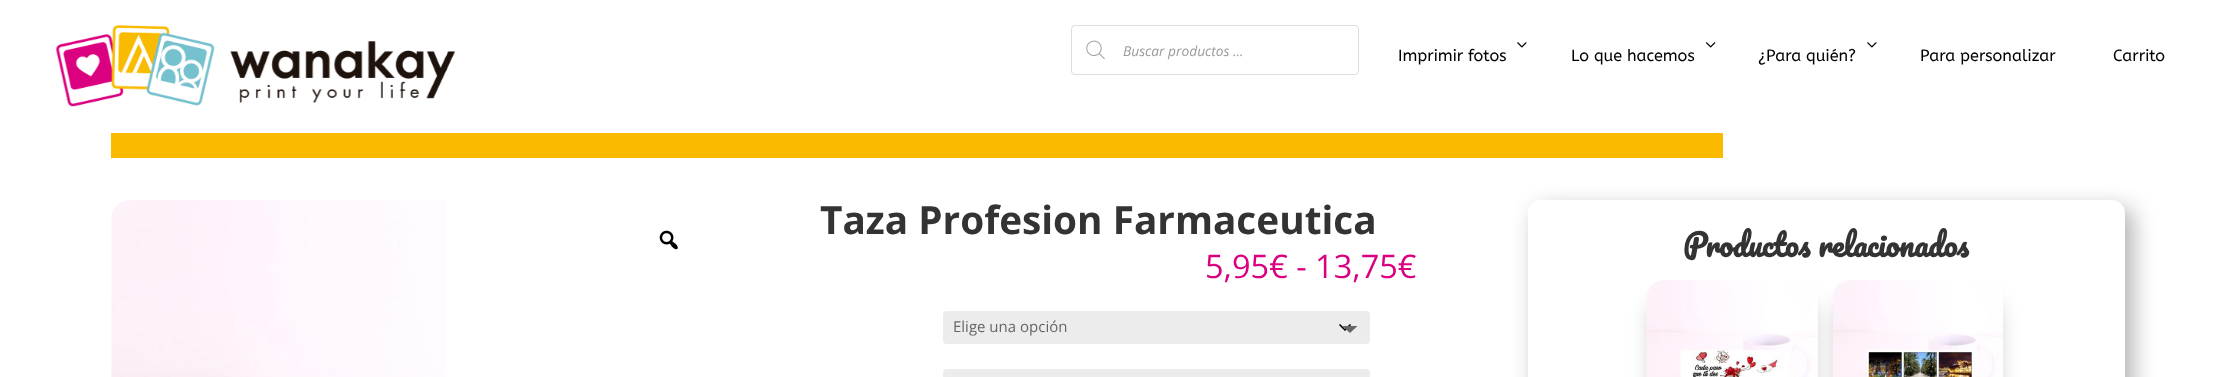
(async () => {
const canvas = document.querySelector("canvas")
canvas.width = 2236
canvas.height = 377
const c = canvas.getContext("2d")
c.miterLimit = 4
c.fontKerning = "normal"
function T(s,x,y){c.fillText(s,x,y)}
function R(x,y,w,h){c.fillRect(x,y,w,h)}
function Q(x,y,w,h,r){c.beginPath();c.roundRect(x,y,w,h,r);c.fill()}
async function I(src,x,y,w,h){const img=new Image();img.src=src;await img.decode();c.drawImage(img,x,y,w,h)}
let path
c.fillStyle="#fff"
R(0,0,2236,377)
await I("1.png",55,25,400,82)
c.beginPath()
c.roundRect(1071.5,25.5,287,49,3.5)
c.strokeStyle="#ddd"
c.stroke()
await I("2.png",1086,40,19,20)
c.font="italic 13.75px Open Sans"
c.fillStyle="#999"
T("Buscar productos ...",1123,56)
await I("3.png",1517,42,10,6)
c.font="16.25px ABeeZee"
c.fillStyle="#000"
T("Imprimir fotos",1398,61)
await I("4.png",1706,42,10,6)
T("Lo que hacemos",1571,61)
await I("3.png",1867,42,10,6)
T("¿Para quién?",1758,61)
T("Para personalizar",1920,61)
T("Carrito",2113,61)
c.fillStyle="#f9ba00"
R(111,133,1612,25)
await I("5.png",111,200,335,177)
await I("6.png",659,230,19,20)
c.font="bold 38.75px Open Sans"
c.fillStyle="#333"
T("Taza Profesion Farmaceutica",820,234)
c.font="32.5px Open Sans"
c.fillStyle="#da007f"
T("5,95€ - 13,75€",1205,278)
c.fillStyle="#ececec"
Q(943,311,427,33,4)
path = new Path2D("M1340 325l5 5l5-5")
c.strokeStyle="#000"
c.lineWidth=1.7
c.lineCap="round"
c.lineJoin="round"
c.stroke(path)
c.font="15px Open Sans"
c.fillStyle="#666"
T("Elige una opción",953,332)
path = new Path2D("M1342.5 326h15l-7.5 7z")
c.fill(path)
c.fillStyle="#ececec"
Q(943,369,427,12,4)
c.save()
path = new Path2D("M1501 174h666v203h-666zm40 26h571c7 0 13 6 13 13v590c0 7-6 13-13 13h-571c-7 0-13-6-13-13v-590c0-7 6-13 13-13z")
c.clip(path,"evenodd")
c.fillStyle="#0000004d"
c.filter="blur(11px)"
c.beginPath()
c.roundRect(1535,208,598,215,13)
c.fill()
c.filter="none"
c.restore()
c.font="bold 30px Pacifico"
c.fillStyle="#333"
T("Productos relacionados",1683,257)
c.fillStyle="#0000004d"
c.filter="blur(11px)"
c.beginPath()
c.roundRect(1654,303,157,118,11)
c.fill()
c.filter="none"
await I("7.png",1646,280,172,97)
c.filter="blur(11px)"
c.beginPath()
c.roundRect(1840,303,156,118,11)
c.fill()
c.filter="none"
await I("8.png",1833,280,170,97)
})()
